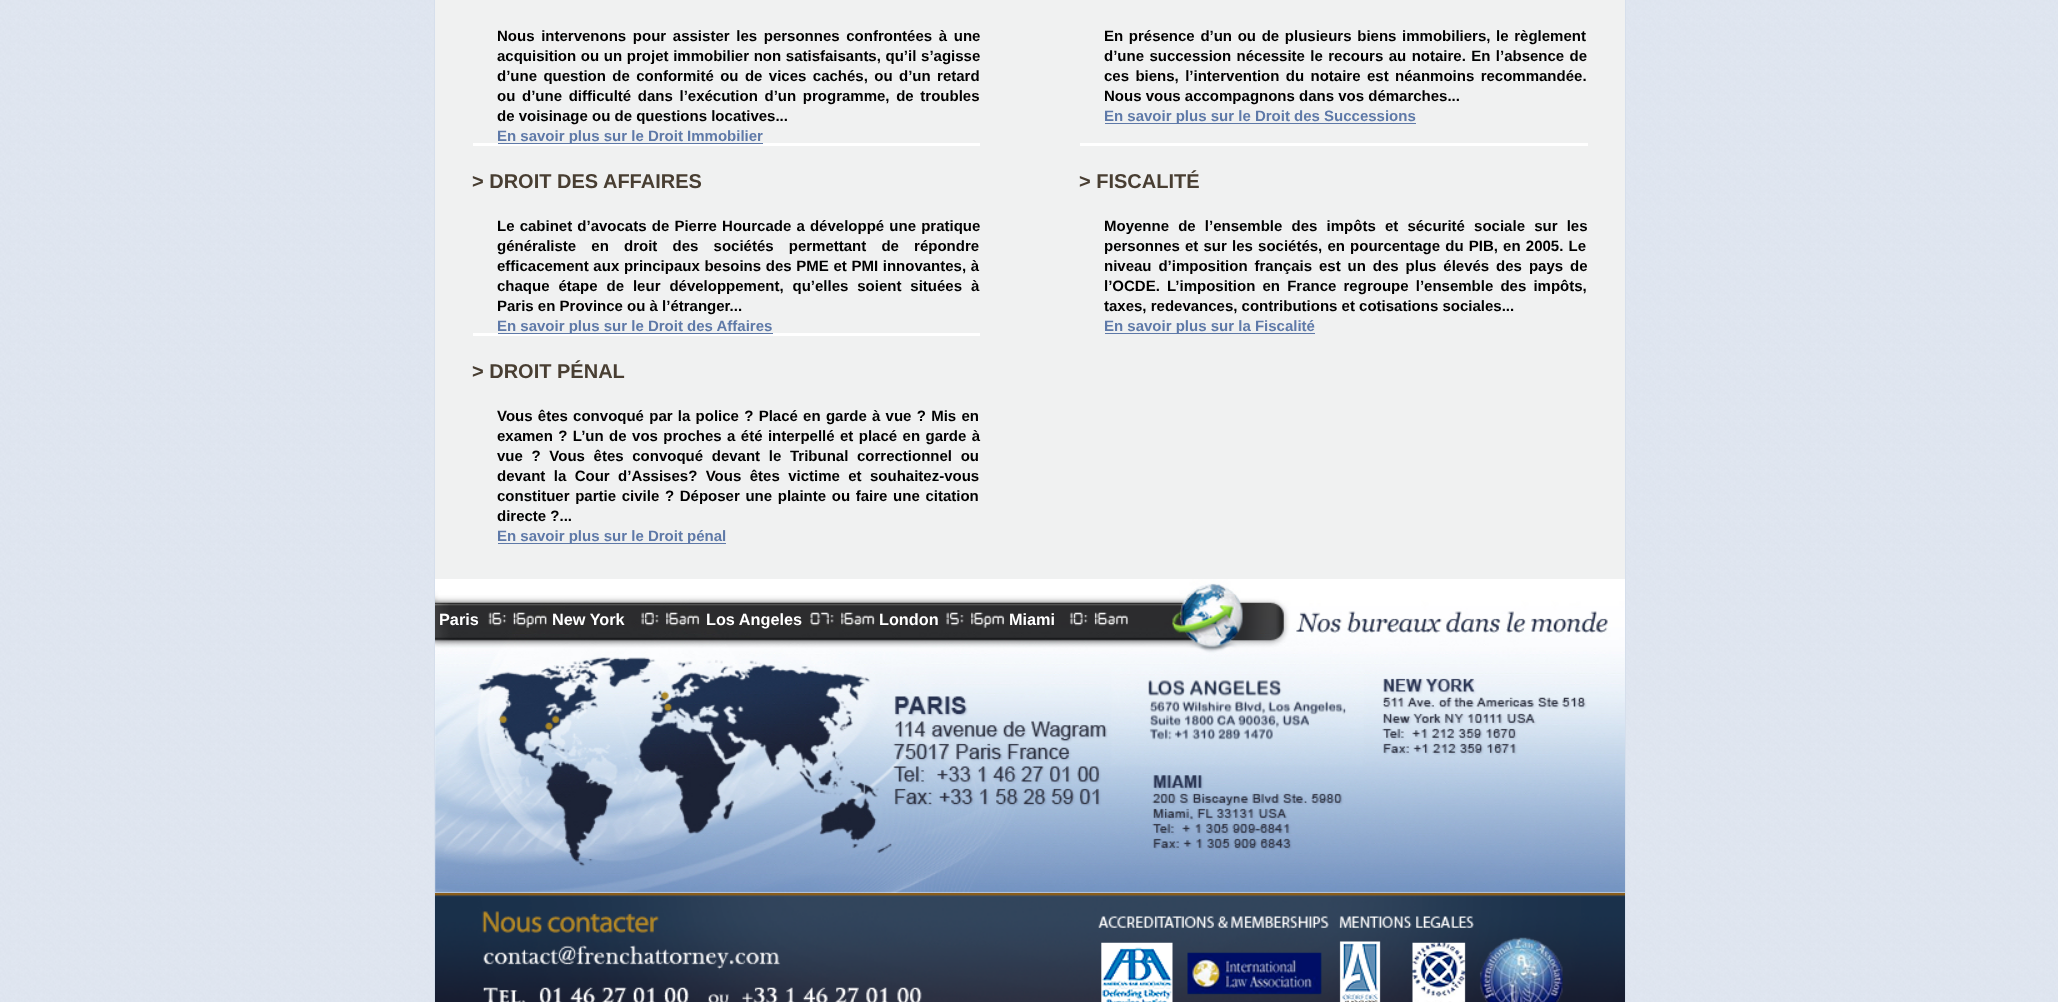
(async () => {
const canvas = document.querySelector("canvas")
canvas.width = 2058
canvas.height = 1002
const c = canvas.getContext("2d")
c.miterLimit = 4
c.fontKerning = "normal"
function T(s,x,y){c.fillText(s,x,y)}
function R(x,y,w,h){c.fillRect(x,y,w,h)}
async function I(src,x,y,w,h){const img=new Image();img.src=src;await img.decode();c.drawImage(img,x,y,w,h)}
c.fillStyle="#fff"
R(0,0,2058,1002)
await I("1.png",0,0,2058,1002)
c.fillStyle="#f0f1f1"
R(435,0,1190,893)
c.fillStyle="#d6dfec"
R(1625,0,1,1002)
R(434,0,1,1002)
c.fillStyle="#fff"
R(473,143,507,3)
c.wordSpacing="2.5px"
c.font="bold 15px Liberation Sans"
c.fillStyle="#000"
T("Nous intervenons pour assister les personnes confrontées à une",497,41)
c.wordSpacing="0.5px"
T("acquisition ou un projet immobilier non satisfaisants, qu’il s’agisse",497,61)
c.wordSpacing="2.25px"
T("d’une question de conformité ou de vices cachés, ou d’un retard",497,81)
c.wordSpacing="2.5px"
T("ou d’une difficulté dans l’exécution d’un programme, de troubles",497,101)
c.wordSpacing="0px"
T("de voisinage ou de questions locatives...",497,121)
c.fillStyle="#5e79a8"
R(498,143,265,1)
T("En savoir plus sur le Droit Immobilier",497,141)
c.fillStyle="#fff"
R(1080,143,508,3)
c.wordSpacing="1.5px"
c.fillStyle="#000"
T("En présence d’un ou de plusieurs biens immobiliers, le règlement",1104,41)
c.wordSpacing="1.25px"
T("d’une succession nécessite le recours au notaire. En l’absence de",1104,61)
c.wordSpacing="2.25px"
T("ces biens, l’intervention du notaire est néanmoins recommandée.",1104,81)
c.wordSpacing="0px"
T("Nous vous accompagnons dans vos démarches...",1104,101)
c.fillStyle="#5e79a8"
R(1105,123,311,1)
T("En savoir plus sur le Droit des Successions",1104,121)
c.fillStyle="#fff"
R(473,333,507,3)
c.font="bold 20px Liberation Sans"
c.fillStyle="#483e32"
T("> DROIT DES AFFAIRES",472,188)
c.wordSpacing="1px"
c.font="bold 15px Liberation Sans"
c.fillStyle="#000"
T("Le cabinet d’avocats de Pierre Hourcade a développé une pratique",497,231)
c.wordSpacing="11px"
T("généraliste en droit des sociétés permettant de répondre",497,251)
c.wordSpacing="0.5px"
T("efficacement aux principaux besoins des PME et PMI innovantes, à",497,271)
c.wordSpacing="4.75px"
T("chaque étape de leur développement, qu’elles soient situées à",497,291)
c.wordSpacing="0px"
T("Paris en Province ou à l’étranger...",497,311)
c.fillStyle="#5e79a8"
R(498,333,275,1)
T("En savoir plus sur le Droit des Affaires",497,331)
c.font="bold 20px Liberation Sans"
c.fillStyle="#483e32"
T("> FISCALITÉ",1079,188)
c.wordSpacing="5px"
c.font="bold 15px Liberation Sans"
c.fillStyle="#000"
T("Moyenne de l’ensemble des impôts et sécurité sociale sur les",1104,231)
c.wordSpacing="1px"
T("personnes et sur les sociétés, en pourcentage du PIB, en 2005. Le",1104,251)
c.wordSpacing="2.75px"
T("niveau d’imposition français est un des plus élevés des pays de",1104,271)
c.wordSpacing="3px"
T("l’OCDE. L’imposition en France regroupe l’ensemble des impôts,",1104,291)
c.wordSpacing="0px"
T("taxes, redevances, contributions et cotisations sociales...",1104,311)
c.fillStyle="#5e79a8"
R(1105,333,210,1)
T("En savoir plus sur la Fiscalité",1104,331)
c.font="bold 20px Liberation Sans"
c.fillStyle="#483e32"
T("> DROIT PÉNAL",472,378)
c.wordSpacing="1.1px"
c.font="bold 15px Liberation Sans"
c.fillStyle="#000"
T("Vous êtes convoqué par la police ? Placé en garde à vue ? Mis en",497,421)
c.wordSpacing="1.25px"
T("examen ? L’un de vos proches a été interpellé et placé en garde à",497,441)
c.wordSpacing="4.5px"
T("vue ? Vous êtes convoqué devant le Tribunal correctionnel ou",497,461)
c.wordSpacing="4.25px"
T("devant la Cour d’Assises? Vous êtes victime et souhaitez-vous",497,481)
c.wordSpacing="1.5px"
T("constituer partie civile ? Déposer une plainte ou faire une citation",497,501)
c.wordSpacing="0px"
T("directe ?...",497,521)
c.fillStyle="#5e79a8"
R(498,543,228,1)
T("En savoir plus sur le Droit pénal",497,541)
await I("2.png",435,579,1190,314)
c.font="bold 16.25px Liberation Sans"
c.fillStyle="#fff"
T("Paris",439,625)
await I("3.png",488,612,59,16)
T("New York",552,625)
await I("4.png",641,612,59,14)
T("Los Angeles",706,625)
await I("5.png",810,612,65,14)
T("London",879,625)
await I("6.png",946,612,59,16)
T("Miami",1009,625)
await I("7.png",1069,612,60,14)
c.fillStyle="#895d1b"
R(435,893,1190,3)
await I("8.png",435,895,1190,107)
})()
